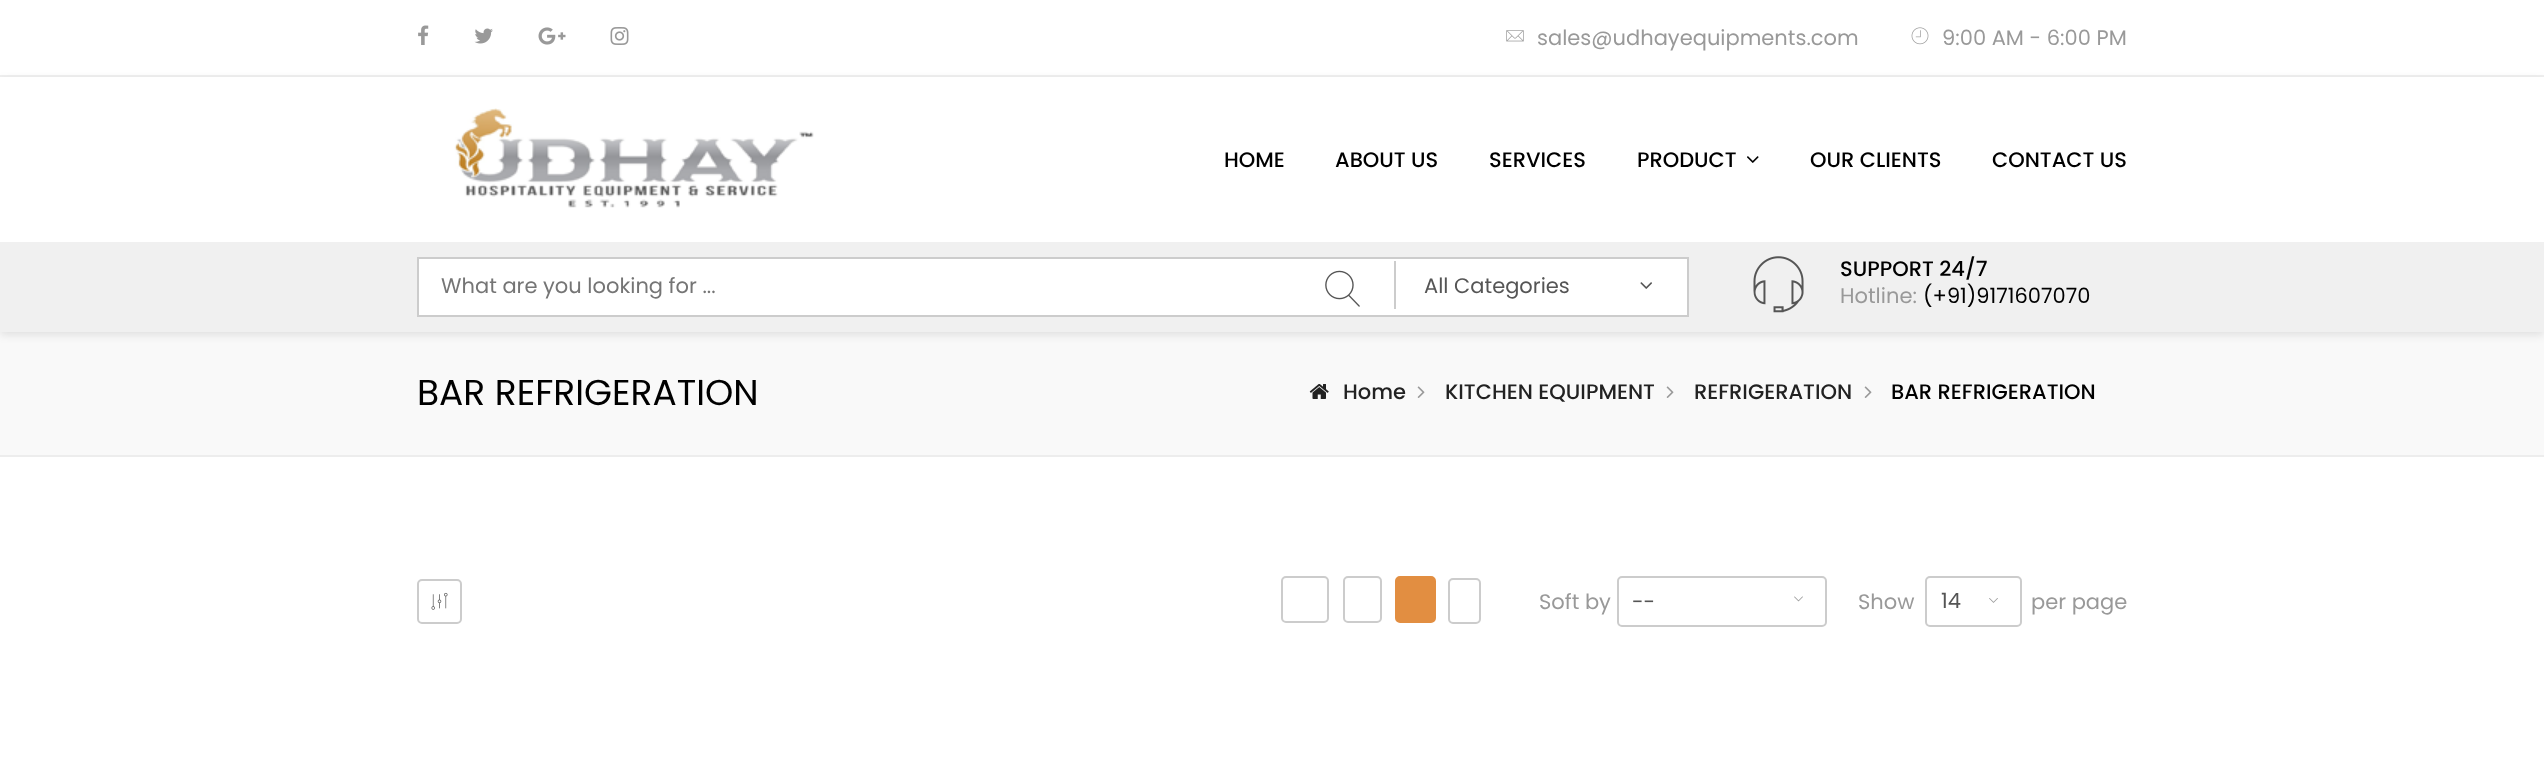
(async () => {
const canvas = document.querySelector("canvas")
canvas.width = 2544
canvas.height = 763
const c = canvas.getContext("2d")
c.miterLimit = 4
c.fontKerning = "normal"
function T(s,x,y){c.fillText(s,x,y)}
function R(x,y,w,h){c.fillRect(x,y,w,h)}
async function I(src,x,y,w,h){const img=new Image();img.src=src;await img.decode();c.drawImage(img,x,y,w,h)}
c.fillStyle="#fff"
R(0,0,2544,763)
c.fillStyle="#f0f0f0"
R(0,75,2544,2)
await I("1.png",418,25,11,20)
await I("2.png",474,28,19,16)
await I("3.png",538,27,28,18)
await I("4.png",610,27,19,18)
await I("5.png",1506,30,18,12)
c.font="21px Poppins"
c.fillStyle="#999"
T("sales@udhayequipments.com",1537,45)
await I("6.png",1911,27,18,18)
T("9:00 AM - 6:00 PM",1942,45)
c.fillStyle="#f9f9f9"
R(0,332,2544,123)
c.fillStyle="#0000001a"
c.filter="blur(4px)"
c.beginPath()
c.rect(0,80,2544,255)
c.fill()
c.filter="none"
c.fillStyle="#fff"
R(0,77,2544,165)
await I("7.png",454,108,360,100)
c.font="500 21px Poppins"
c.fillStyle="#000"
T("HOME",1224,167)
T("ABOUT US",1335,167)
T("SERVICES",1489,167)
T("PRODUCT",1637,167)
await I("8.png",1747,156,12,7)
T("OUR CLIENTS",1810,167)
T("CONTACT US",1992,167)
c.fillStyle="#f0f0f0"
R(0,242,2544,90)
c.fillStyle="#fff"
c.beginPath()
c.rect(418,258,1270,58)
c.fill()
c.strokeStyle="#ccc"
c.lineWidth=2
c.stroke()
c.font="21px Poppins"
c.fillStyle="#757575"
T("What are you looking for ...",441,293)
await I("9.png",1325,270,35,37)
c.fillStyle="#ccc"
R(1394,261,2,48)
c.fillStyle="#555"
T("All Categories",1424,293)
await I("10.png",1640,282,12,7)
await I("11.png",1753,256,51,57)
c.font="500 21px Poppins"
c.fillStyle="#000"
T("SUPPORT 24/7",1840,276)
c.font="21px Poppins"
c.fillStyle="#999"
T("Hotline:",1840,303)
c.fillStyle="#000"
T("(+91)9171607070",1923,303)
c.fillStyle="#ededed"
R(0,455,2544,2)
c.font="36px Poppins"
c.fillStyle="#000"
T("BAR REFRIGERATION",417,405)
await I("12.png",1309,384,20,15)
c.font="500 21px Poppins"
c.fillStyle="#222"
T("Home",1343,399)
await I("13.png",1417,386,8,12)
T("KITCHEN EQUIPMENT",1445,399)
await I("13.png",1666,386,8,12)
T("REFRIGERATION",1694,399)
await I("13.png",1864,386,8,12)
c.fillStyle="#000"
T("BAR REFRIGERATION",1891,399)
c.beginPath()
c.roundRect(418,580,43,43,4)
c.stroke()
await I("14.png",431,592,17,18)
c.beginPath()
c.roundRect(1282,577,46,45,4)
c.stroke()
c.beginPath()
c.roundRect(1344,577,37,45,4)
c.stroke()
c.fillStyle="#e28e41"
c.beginPath()
c.roundRect(1396,577,39,45,4)
c.fill()
c.strokeStyle="#e28e41"
c.stroke()
c.beginPath()
c.roundRect(1449,579,31,44,4)
c.strokeStyle="#ccc"
c.stroke()
c.font="21px Poppins"
c.fillStyle="#999"
T("Soft by",1539,609)
c.beginPath()
c.roundRect(1618,577,208,49,4)
c.stroke()
c.fillStyle="#555"
T("--",1632,609)
await I("15.png",1794,596,9,6)
c.fillStyle="#999"
T("Show",1858,609)
c.beginPath()
c.roundRect(1926,577,95,49,4)
c.stroke()
c.fillStyle="#555"
T("14",1941,608)
await I("16.png",1989,598,9,5)
c.fillStyle="#999"
T("per page",2031,609)
})()
